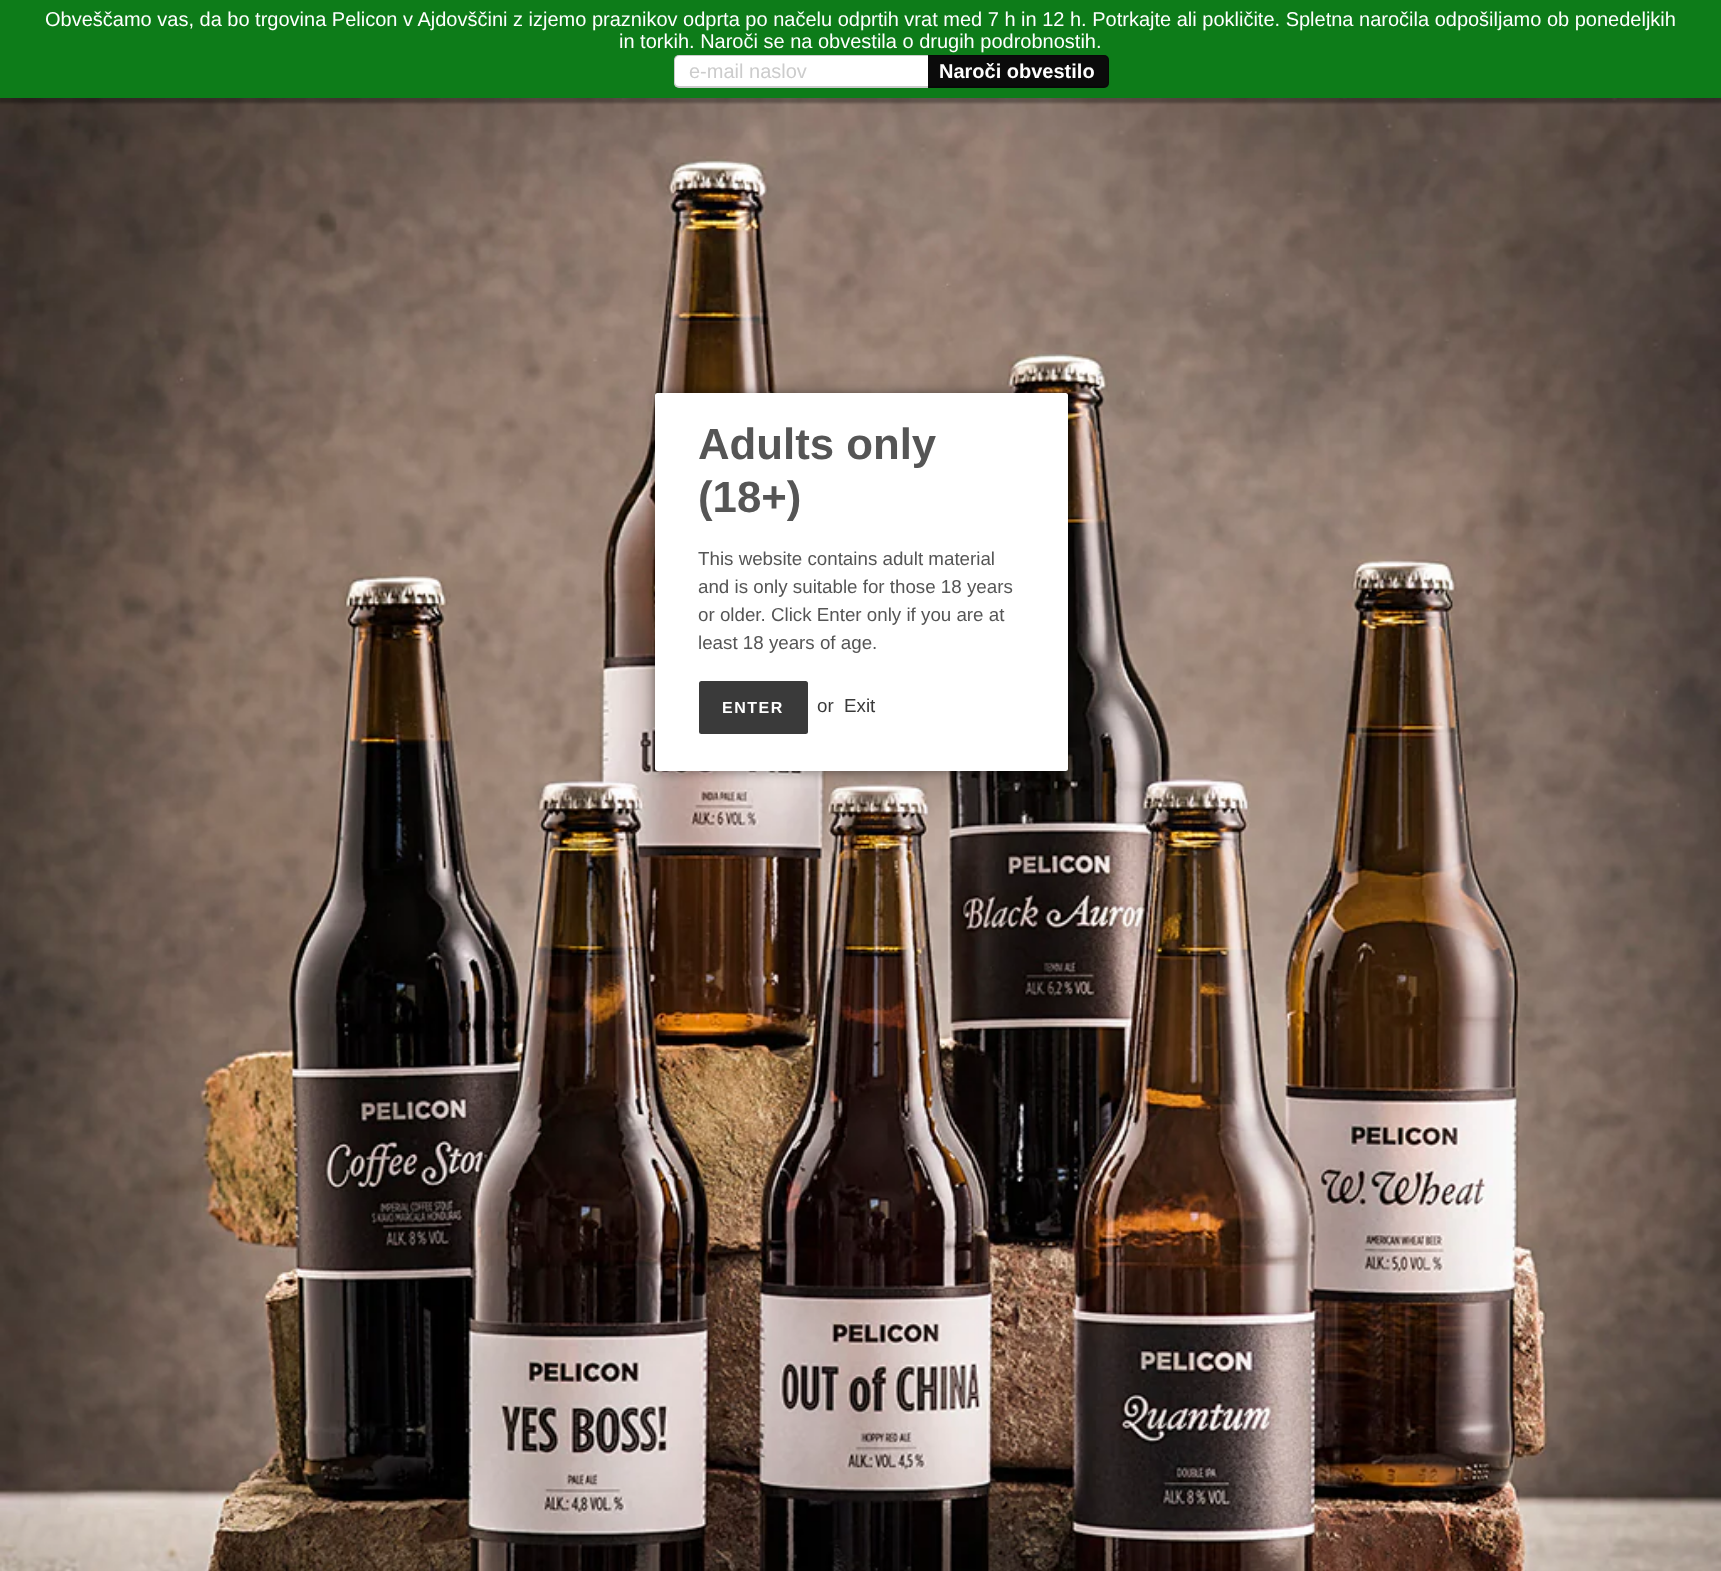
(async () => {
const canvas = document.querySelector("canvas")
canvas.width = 1721
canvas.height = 1571
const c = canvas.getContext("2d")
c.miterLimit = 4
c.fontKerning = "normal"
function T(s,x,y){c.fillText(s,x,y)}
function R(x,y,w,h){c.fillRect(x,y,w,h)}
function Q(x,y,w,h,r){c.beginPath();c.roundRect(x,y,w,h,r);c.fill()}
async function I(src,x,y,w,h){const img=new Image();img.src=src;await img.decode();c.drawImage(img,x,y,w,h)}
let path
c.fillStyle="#fff"
R(0,0,1721,1571)
await I("1.png",0,98,1721,1473)
c.fillStyle="#0000004d"
c.filter="blur(1px)"
c.beginPath()
c.rect(-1,3,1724,100)
c.fill()
c.filter="none"
c.fillStyle="#0d7c19"
R(0,0,1721,98)
c.font="20px Liberation Sans"
c.fillStyle="#fff"
T("Obveščamo vas, da bo trgovina Pelicon v Ajdovščini z izjemo praznikov odprta po načelu odprtih vrat med 7 h in 12 h. Potrkajte ali pokličite. Spletna naročila odpošiljamo ob ponedeljkih",45,26)
T("in torkih. Naroči se na obvestila o drugih podrobnostih.",619,48)
c.beginPath()
c.roundRect(674,55,254,33,[5,0,0,5])
c.fill()
c.fillStyle="#00000033"
path = new Path2D("M679 55h249v33h-249c-3 0-5-3-5-6v-22c0-3 2-5 5-5zm0 1h249v30h-249c-2 0-4-1-4-4v-22c0-2 2-4 4-4z")
c.fill(path,"evenodd")
c.fillStyle="#ccc"
T("e-mail naslov",689,78)
c.fillStyle="#0b0b0b"
c.beginPath()
c.roundRect(928,55,181,33,[0,5,5,0])
c.fill()
c.fillStyle="#00000033"
path = new Path2D("M928 55h176c3 0 5 2 5 5v22c0 3-2 6-5 6h-176zm0 1h176c2 0 4 2 4 4v22c0 3-2 4-4 4h-176z")
c.fill(path,"evenodd")
c.font="bold 20px Liberation Sans"
c.fillStyle="#fff"
T("Naroči obvestilo",939,78)
c.fillStyle="#00000080"
c.filter="blur(6px)"
c.beginPath()
c.roundRect(655,393,413,378,2.5)
c.fill()
c.filter="none"
c.fillStyle="#fff"
Q(655,393,413,378,2.5)
c.font="bold 43.75px Liberation Sans"
c.fillStyle="#555"
T("Adults only",698,459)
T("(18+)",698,512)
c.font="18.75px Liberation Sans"
T("This website contains adult material",698,565)
T("and is only suitable for those 18 years",698,593)
T("or older. Click Enter only if you are at",698,621)
T("least 18 years of age.",698,649)
c.fillStyle="#3a3a3a"
Q(699,681,109,53,2.5)
c.letterSpacing="1.5px"
c.font="bold 16px Liberation Sans"
c.fillStyle="#fff"
T("ENTER",722,713)
c.letterSpacing="0px"
c.font="18.75px Liberation Sans"
c.fillStyle="#3a3a3a"
T("or",817,712)
T("Exit",844,712)
})()
